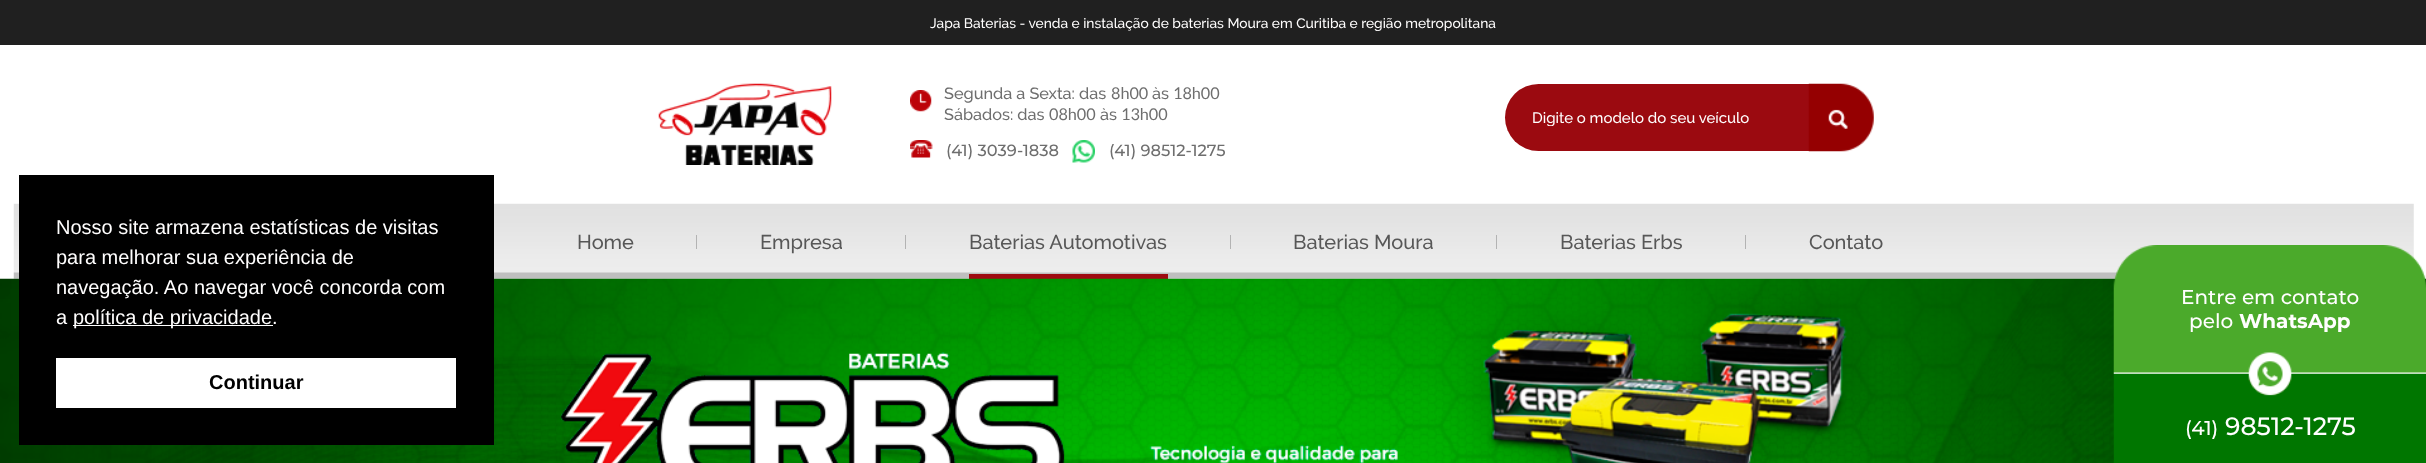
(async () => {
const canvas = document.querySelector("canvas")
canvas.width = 2426
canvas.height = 463
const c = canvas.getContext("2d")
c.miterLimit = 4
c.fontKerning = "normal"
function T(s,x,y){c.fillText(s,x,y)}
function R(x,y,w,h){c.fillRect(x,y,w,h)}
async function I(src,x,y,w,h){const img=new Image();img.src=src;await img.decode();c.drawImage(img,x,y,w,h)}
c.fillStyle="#fff"
R(0,0,2426,463)
c.fillStyle="#202020"
R(0,0,2426,45)
c.font="500 13.75px Raleway"
c.fillStyle="#fffefe"
T("Japa Baterias - venda e instalação de baterias Moura em Curitiba e região metropolitana",930,28)
await I("1.png",658,83,174,82)
await I("2.png",910,90,22,22)
c.font="500 16.25px Raleway"
c.fillStyle="#6e6e6e"
T("Segunda a Sexta: das",944,99)
c.font="16.25px Lato"
T("8h00",1111,99)
c.font="500 16.25px Raleway"
T("às",1152,99)
c.font="16.25px Lato"
T("18h00",1173,99)
c.font="500 16.25px Raleway"
T("Sábados: das",944,120)
c.font="16.25px Lato"
T("08h00",1049,120)
c.font="500 16.25px Raleway"
T("às",1100,120)
c.font="16.25px Lato"
T("13h00",1121,120)
await I("3.png",910,140,23,18)
c.font="500 16.25px Montserrat"
T("(41) 3039-1838",946,156)
await I("4.png",1072,140,23,23)
T("(41) 98512-1275",1109,156)
c.fillStyle="#9b0a10"
c.beginPath()
c.roundRect(1505,84,304,67,[33.5,0,0,33.5])
c.fill()
c.save()
c.beginPath()
c.rect(1533,109,248,17)
c.clip()
c.font="500 15px Raleway"
c.fillStyle="#fffefe"
T("Digite o modelo do seu veículo",1532,123)
c.restore()
await I("5.png",1808,83,66,69)
await I("6.png",13,203,2401,76)
c.font="500 20px Raleway"
c.fillStyle="#575757"
T("Home",577,249)
c.fillStyle="#b3b3b3"
R(696,235,1,14)
c.fillStyle="#575757"
T("Empresa",760,249)
c.fillStyle="#b3b3b3"
R(905,235,1,14)
c.fillStyle="#9f0a11"
R(969,274,199,5)
c.fillStyle="#575757"
T("Baterias Automotivas",969,249)
c.fillStyle="#b3b3b3"
R(1230,235,1,14)
c.fillStyle="#575757"
T("Baterias Moura",1293,249)
c.fillStyle="#b3b3b3"
R(1496,235,1,14)
c.fillStyle="#575757"
T("Baterias Erbs",1560,249)
c.fillStyle="#b3b3b3"
R(1745,235,1,14)
c.fillStyle="#575757"
T("Contato",1809,249)
await I("7.png",0,278,2426,185)
c.fillStyle="#000"
R(19,175,475,270)
c.font="20px Liberation Sans"
c.fillStyle="#fffefe"
T("Nosso site armazena estatísticas de visitas",56,234)
T("para melhorar sua experiência de",56,264)
T("navegação. Ao navegar você concorda com",56,294)
T("a",56,324)
c.fillStyle="#fff"
R(73,325,200,1)
c.fillStyle="#fffefe"
T("política de privacidade.",73,324)
c.fillStyle="#fff"
R(56,358,400,50)
c.font="bold 20px Liberation Sans"
c.fillStyle="#000"
T("Continuar",209,389)
await I("8.png",2113,245,313,218)
c.font="500 20px Montserrat"
c.fillStyle="#fffefe"
T("Entre em contato",2181,304)
T("pelo",2189,328)
c.font="bold 20px Montserrat"
T("WhatsApp",2239,328)
c.font="500 20px Montserrat"
T("(41)",2185,435)
c.font="500 25px Montserrat"
T("98512-1275",2225,435)
})()
